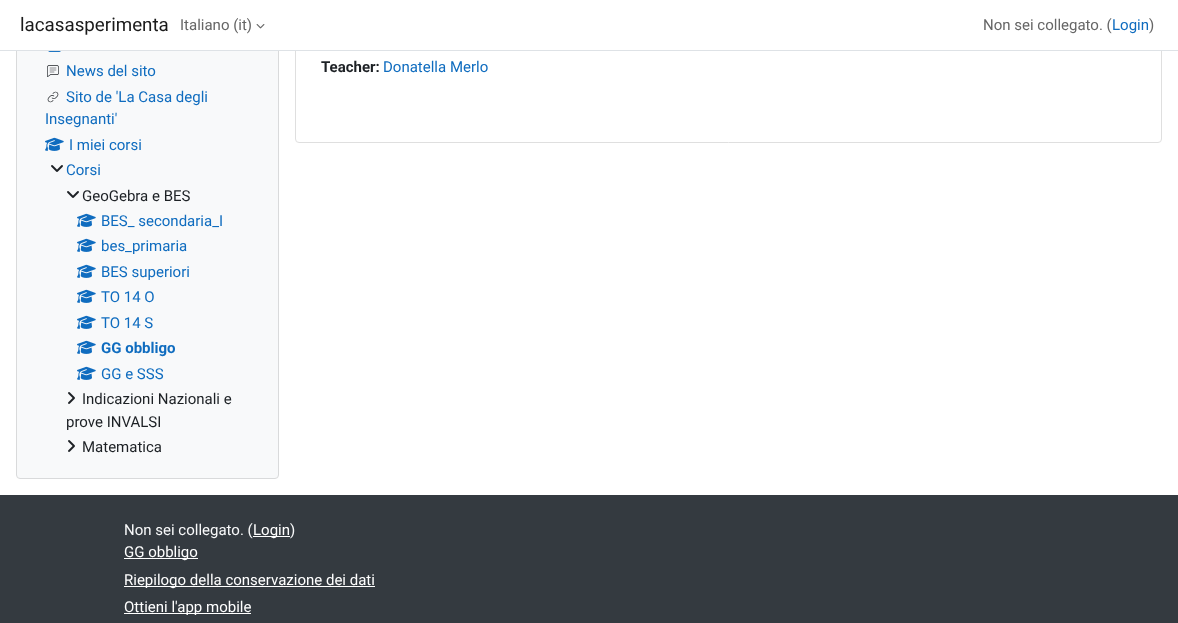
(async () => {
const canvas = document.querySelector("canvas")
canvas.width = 1178
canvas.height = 623
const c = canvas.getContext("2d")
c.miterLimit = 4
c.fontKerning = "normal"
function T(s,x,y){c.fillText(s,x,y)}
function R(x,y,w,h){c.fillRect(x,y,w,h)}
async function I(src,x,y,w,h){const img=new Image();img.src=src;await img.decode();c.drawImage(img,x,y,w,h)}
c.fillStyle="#fff"
R(0,0,1178,623)
c.fillStyle="#f8f9fa"
c.beginPath()
c.roundRect(16.5,-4.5,262,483,3.5)
c.fill()
c.strokeStyle="#d9dadb"
c.stroke()
c.beginPath()
c.roundRect(295.5,-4.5,866,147,3.5)
c.strokeStyle="#dfdfdf"
c.stroke()
c.fillStyle="#fff"
R(16,0,1146,50)
c.fillStyle="#dee2e6"
R(0,50,1178,1)
c.font="18.75px Roboto"
c.fillStyle="#1a1a1a"
T("lacasasperimenta",20,31)
c.font="15px Roboto"
c.fillStyle="#666"
T("Italiano (it)",180,30)
await I("1.png",256,24,9,5)
T("Non sei collegato. (",983,30)
c.fillStyle="#0f6cbf"
T("Login",1112,30)
c.fillStyle="#666"
T(")",1149,30)
await I("2.png",48,51,13,1)
await I("3.png",47,65,12,12)
c.fillStyle="#0f6cbf"
T("News del sito",66,76)
await I("4.png",47,91,12,12)
T("Sito de 'La Casa degli",66,102)
T("Insegnanti'",45,124)
await I("5.png",45,137,19,14)
T("I miei corsi",69,150)
await I("6.png",51,165,12,7)
T("Corsi",66,175)
await I("6.png",67,191,12,7)
c.fillStyle="#1d2125"
T("GeoGebra e BES",82,201)
await I("5.png",77,213,19,14)
c.fillStyle="#0f6cbf"
T("BES_ secondaria_I",101,226)
await I("5.png",77,238,19,14)
T("bes_primaria",101,251)
await I("5.png",77,264,19,14)
T("BES superiori",101,277)
await I("5.png",77,289,19,14)
T("TO 14 O",101,302)
await I("5.png",77,315,19,14)
T("TO 14 S",101,328)
await I("5.png",77,340,19,14)
c.font="bold 15px Roboto"
T("GG obbligo",101,353)
await I("5.png",77,366,19,14)
c.font="15px Roboto"
T("GG e SSS",101,379)
await I("7.png",68,392,7,12)
c.fillStyle="#1d2125"
T("Indicazioni Nazionali e",82,404)
T("prove INVALSI",66,427)
await I("7.png",68,440,7,12)
T("Matematica",82,452)
c.font="bold 15px Roboto"
T("Teacher:",321,72)
c.font="15px Roboto"
c.fillStyle="#0f6cbf"
T("Donatella Merlo",383,72)
c.fillStyle="#343a40"
R(0,495,1178,128)
c.fillStyle="#f8f9fa"
T("Non sei collegato. (",124,535)
c.fillStyle="#fff"
R(253,536,37,1)
T("Login",253,535)
c.fillStyle="#f8f9fa"
T(")",290,535)
c.fillStyle="#fff"
R(124,558,74,1)
T("GG obbligo",124,557)
R(124,586,251,1)
T("Riepilogo della conservazione dei dati",124,585)
R(124,613,127,1)
T("Ottieni l'app mobile",124,612)
})()
